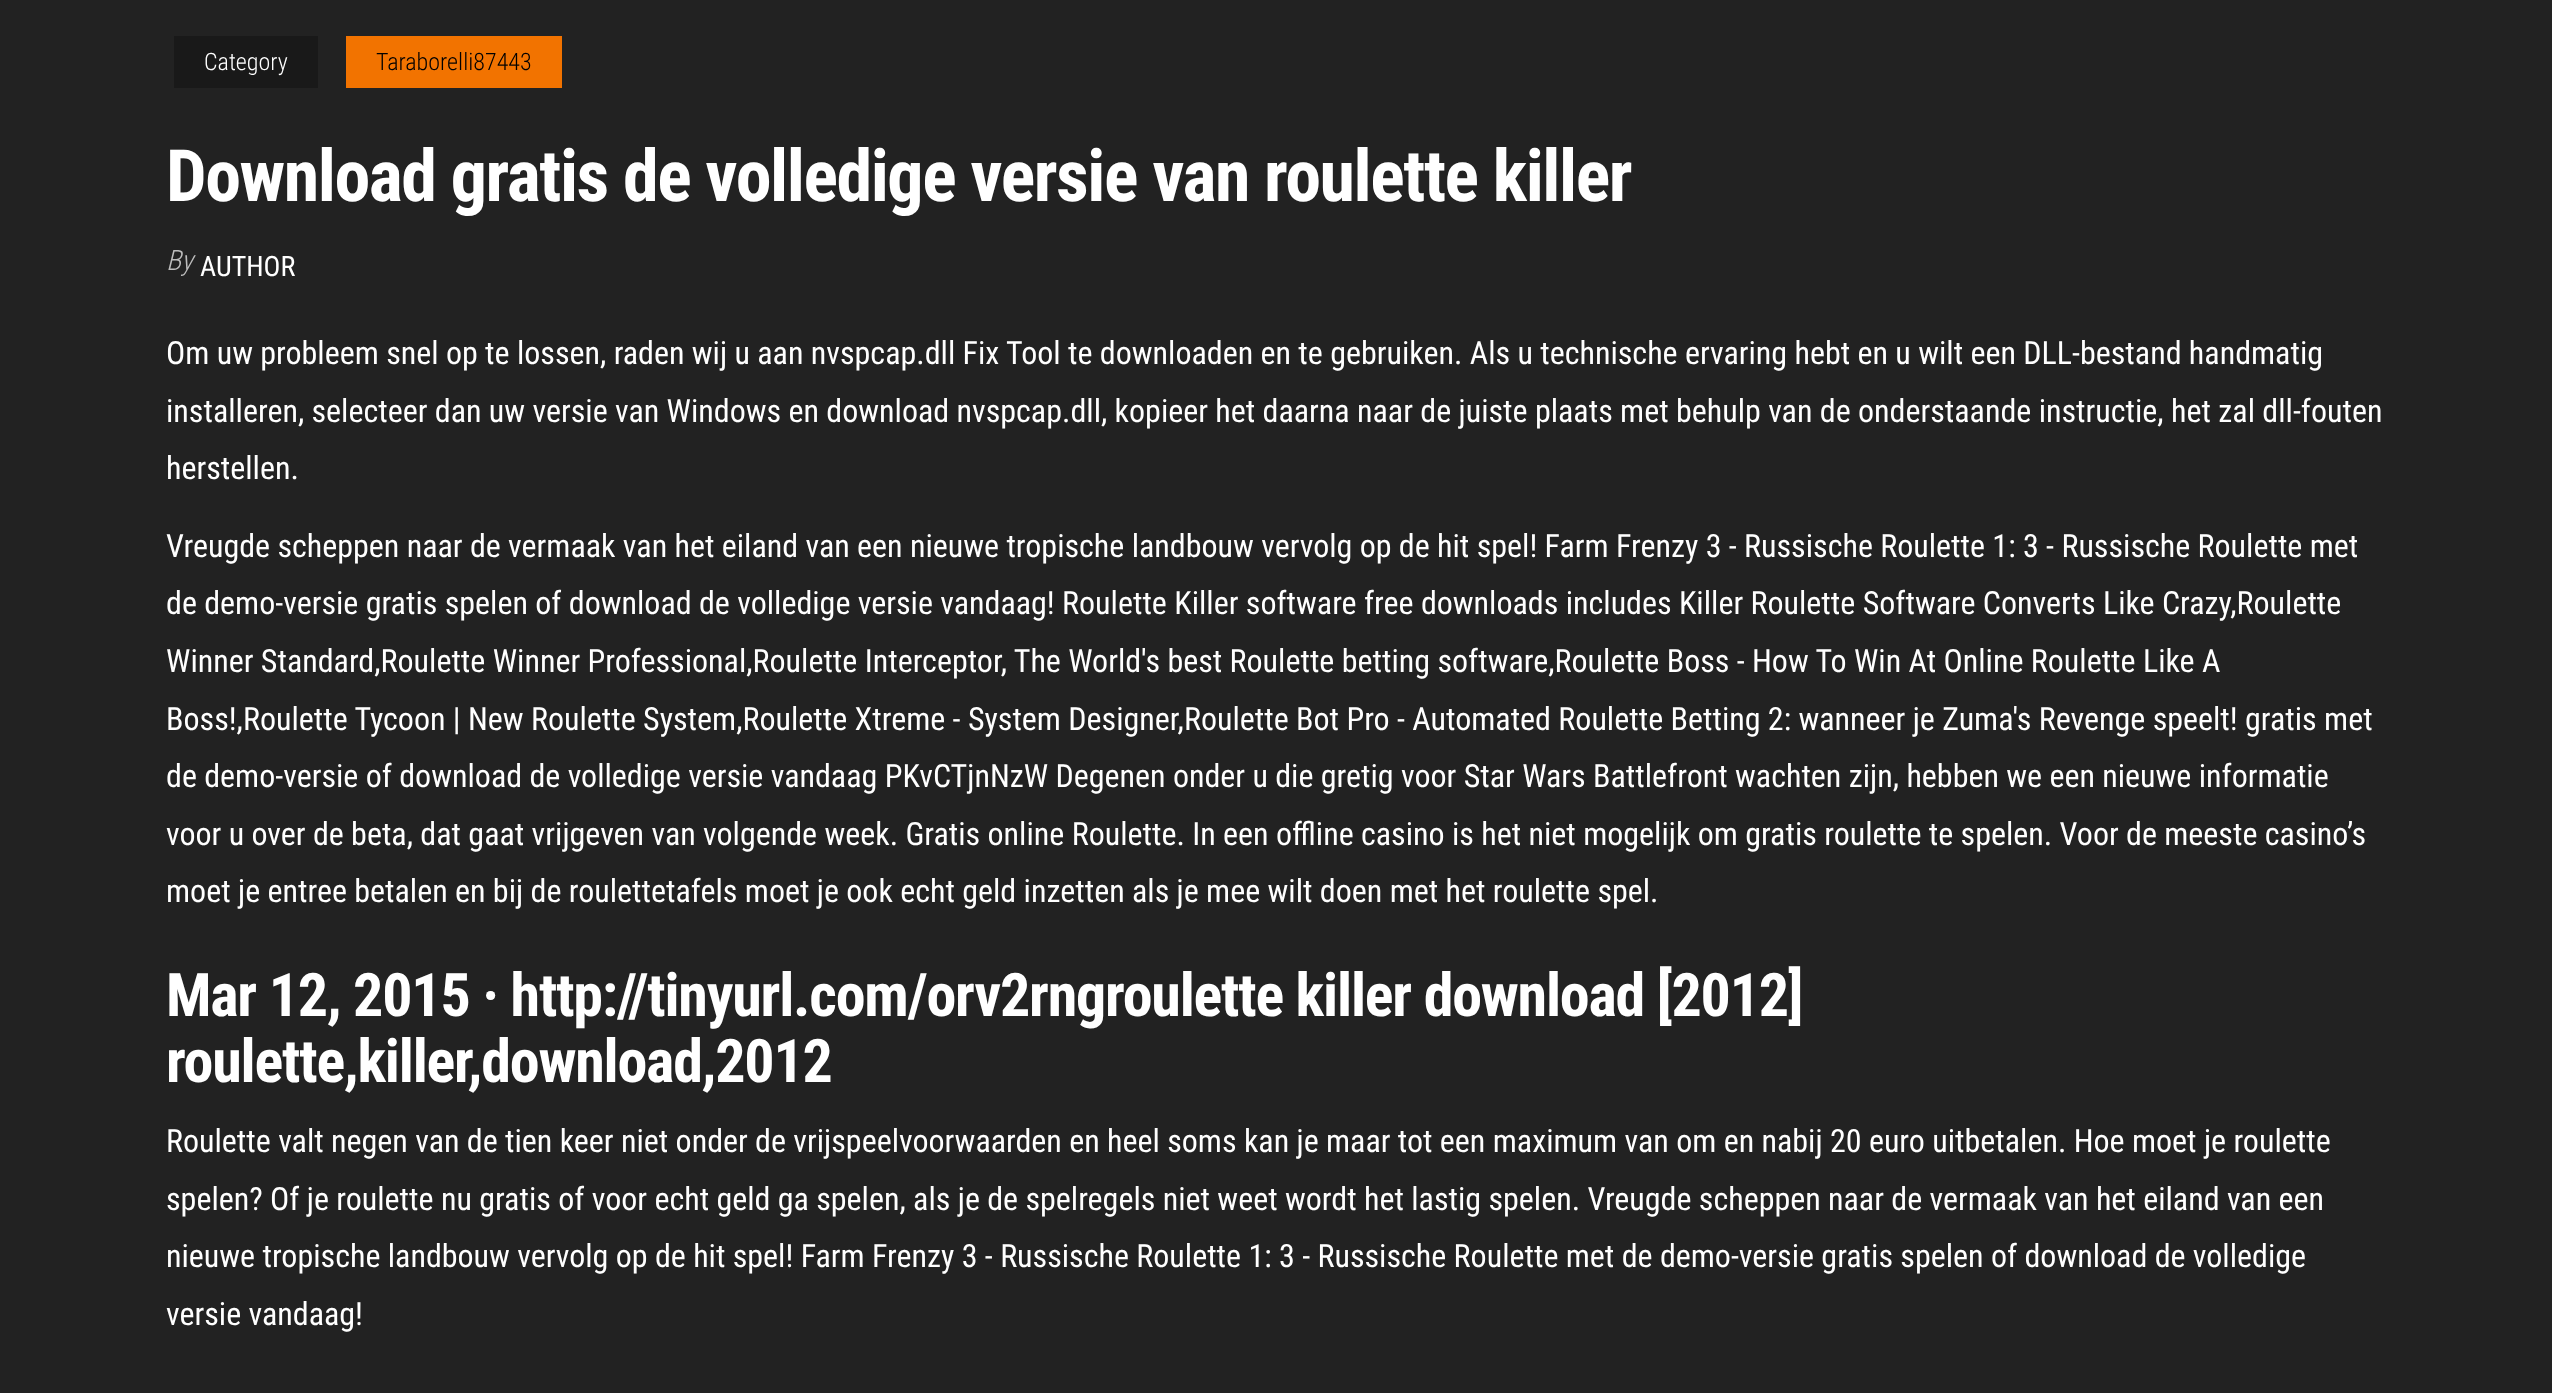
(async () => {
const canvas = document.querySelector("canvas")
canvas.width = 2552
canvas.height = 1393
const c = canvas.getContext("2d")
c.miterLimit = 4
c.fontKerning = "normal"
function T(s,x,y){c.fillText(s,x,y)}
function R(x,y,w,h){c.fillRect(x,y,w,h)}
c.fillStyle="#222"
R(0,0,2552,1393)
c.fillStyle="#191919"
R(174,36,144,52)
c.font="300 24px Roboto Condensed"
c.fillStyle="#fff"
T("Category",204,70)
c.fillStyle="#f27300"
R(346,36,216,52)
c.fillStyle="#000"
T("Taraborelli87443",376,70)
c.letterSpacing="-1.45px"
c.font="bold 72px Roboto Condensed"
c.fillStyle="#fff"
T("Download gratis de volledige versie van roulette killer",166,201)
c.letterSpacing="0px"
c.font="italic 300 28px Roboto Condensed"
c.fillStyle="#bdbdbd"
T("By",166,270)
c.font="28px Roboto Condensed"
c.fillStyle="#fff"
T("AUTHOR",200,276)
c.font="32px Roboto Condensed"
T("Om uw probleem snel op te lossen, raden wij u aan nvspcap.dll Fix Tool te downloaden en te gebruiken. Als u technische ervaring hebt en u wilt een DLL-bestand handmatig",166,364)
T("installeren, selecteer dan uw versie van Windows en download nvspcap.dll, kopieer het daarna naar de juiste plaats met behulp van de onderstaande instructie, het zal dll-fouten",166,422)
T("herstellen.",166,479)
T("Vreugde scheppen naar de vermaak van het eiland van een nieuwe tropische landbouw vervolg op de hit spel! Farm Frenzy 3 - Russische Roulette 1: 3 - Russische Roulette met",166,557)
T("de demo-versie gratis spelen of download de volledige versie vandaag! Roulette Killer software free downloads includes Killer Roulette Software Converts Like Crazy,Roulette",166,614)
T("Winner Standard,Roulette Winner Professional,Roulette Interceptor, The World's best Roulette betting software,Roulette Boss - How To Win At Online Roulette Like A",166,672)
T("Boss!,Roulette Tycoon | New Roulette System,Roulette Xtreme - System Designer,Roulette Bot Pro - Automated Roulette Betting 2: wanneer je Zuma's Revenge speelt! gratis met",166,730)
T("de demo-versie of download de volledige versie vandaag PKvCTjnNzW Degenen onder u die gretig voor Star Wars Battlefront wachten zijn, hebben we een nieuwe informatie",166,787)
T("voor u over de beta, dat gaat vrijgeven van volgende week. Gratis online Roulette. In een offline casino is het niet mogelijk om gratis roulette te spelen. Voor de meeste casino’s",166,845)
T("moet je entree betalen en bij de roulettetafels moet je ook echt geld inzetten als je mee wilt doen met het roulette spel.",166,902)
c.letterSpacing="-1.2px"
c.font="bold 60px Roboto Condensed"
T("Mar 12, 2015 · http://tinyurl.com/orv2rngroulette killer download [2012]",166,1016)
T("roulette,killer,download,2012",166,1082)
c.letterSpacing="0px"
c.font="32px Roboto Condensed"
T("Roulette valt negen van de tien keer niet onder de vrijspeelvoorwaarden en heel soms kan je maar tot een maximum van om en nabij 20 euro uitbetalen. Hoe moet je roulette",166,1152)
T("spelen? Of je roulette nu gratis of voor echt geld ga spelen, als je de spelregels niet weet wordt het lastig spelen. Vreugde scheppen naar de vermaak van het eiland van een",166,1210)
T("nieuwe tropische landbouw vervolg op de hit spel! Farm Frenzy 3 - Russische Roulette 1: 3 - Russische Roulette met de demo-versie gratis spelen of download de volledige",166,1267)
T("versie vandaag!",166,1325)
})()
